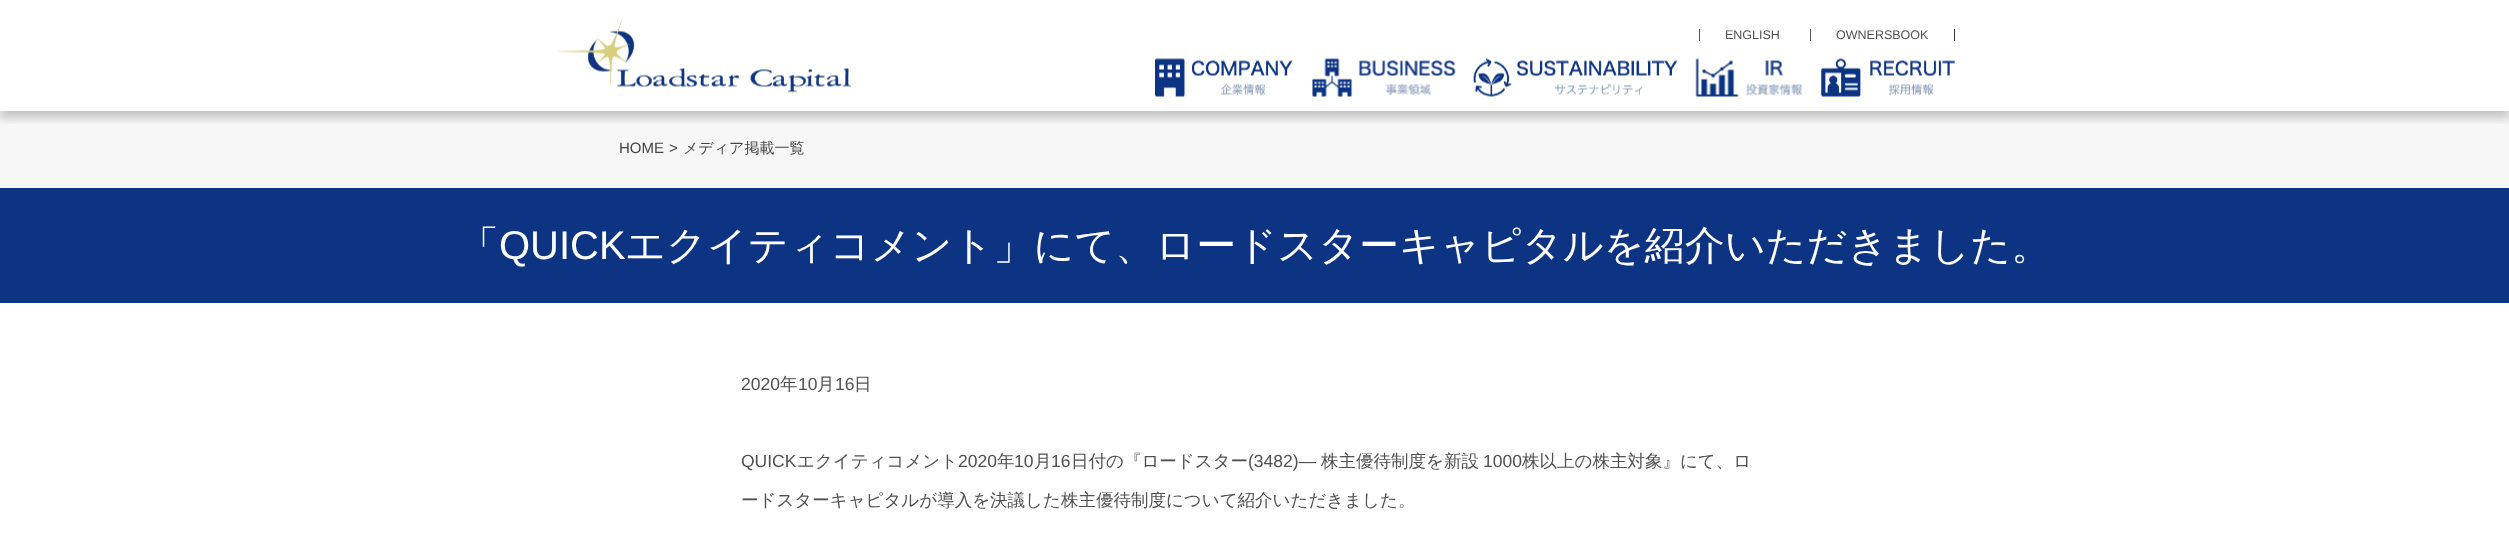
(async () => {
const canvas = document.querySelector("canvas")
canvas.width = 2509
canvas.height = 544
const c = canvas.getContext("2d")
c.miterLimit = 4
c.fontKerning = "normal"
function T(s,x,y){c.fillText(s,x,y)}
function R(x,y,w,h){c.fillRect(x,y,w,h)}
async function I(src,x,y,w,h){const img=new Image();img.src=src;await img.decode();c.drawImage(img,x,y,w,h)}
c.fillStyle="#fff"
R(0,0,2509,544)
c.fillStyle="#f6f6f6"
R(0,111,2509,77)
c.save()
c.beginPath()
c.rect(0,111,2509,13)
c.clip()
c.fillStyle="#00000033"
c.filter="blur(5px)"
c.beginPath()
c.rect(0,6,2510,112)
c.fill()
c.filter="none"
c.restore()
await I("1.png",557,18,295,75)
c.fillStyle="#555"
R(1699,29,1,12)
c.font="12.5px Liberation Sans"
c.fillStyle="#505050"
T("ENGLISH",1725,39)
c.fillStyle="#333"
R(1954,29,1,12)
c.fillStyle="#555"
R(1810,29,1,12)
c.fillStyle="#505050"
T("OWNERSBOOK",1836,39)
await I("2.png",1155,58,138,39)
await I("3.png",1312,58,144,39)
await I("4.png",1473,58,205,39)
await I("5.png",1695,58,108,39)
await I("6.png",1821,58,134,39)
c.font="15px Liberation Sans"
c.fillStyle="#444"
T("HOME",619,153)
T(">",669,153)
c.font="500 15px WenQuanYi Zen Hei"
T("メディア掲載一覧",683,153)
c.fillStyle="#0d3482"
R(0,188,2509,115)
c.font="500 40px WenQuanYi Zen Hei"
c.fillStyle="#fff"
T("「",459,259)
c.font="40px Liberation Sans"
T("QUICK",499,259)
c.font="500 40px WenQuanYi Zen Hei"
T("エクイティコメント」にて、ロードスターキャピタルを紹介いただきました。",625,259)
c.font="17.5px Liberation Sans"
c.fillStyle="#505050"
T("2020",741,390)
c.font="500 17.5px WenQuanYi Zen Hei"
T("年",780,390)
c.font="17.5px Liberation Sans"
T("10",798,390)
c.font="500 17.5px WenQuanYi Zen Hei"
T("月",817,390)
c.font="17.5px Liberation Sans"
T("16",835,390)
c.font="500 17.5px WenQuanYi Zen Hei"
T("日",854,390)
c.font="17.5px Liberation Sans"
T("QUICK",741,467)
c.font="500 17.5px WenQuanYi Zen Hei"
T("エクイティコメント",797,467)
c.font="17.5px Liberation Sans"
T("2020",958,467)
c.font="500 17.5px WenQuanYi Zen Hei"
T("年",997,467)
c.font="17.5px Liberation Sans"
T("10",1014,467)
c.font="500 17.5px WenQuanYi Zen Hei"
T("月",1034,467)
c.font="17.5px Liberation Sans"
T("16",1051,467)
c.font="500 17.5px WenQuanYi Zen Hei"
T("日付の『ロードスター",1071,467)
c.font="17.5px Liberation Sans"
T("(3482)―",1248,467)
c.font="500 17.5px WenQuanYi Zen Hei"
T("株主優待制度を新設",1321,467)
c.font="17.5px Liberation Sans"
T("1000",1483,467)
c.font="500 17.5px WenQuanYi Zen Hei"
T("株以上の株主対象』にて、ロ",1522,467)
T("ードスターキャピタルが導入を決議した株主優待制度について紹介いただきました。",741,506)
})()
